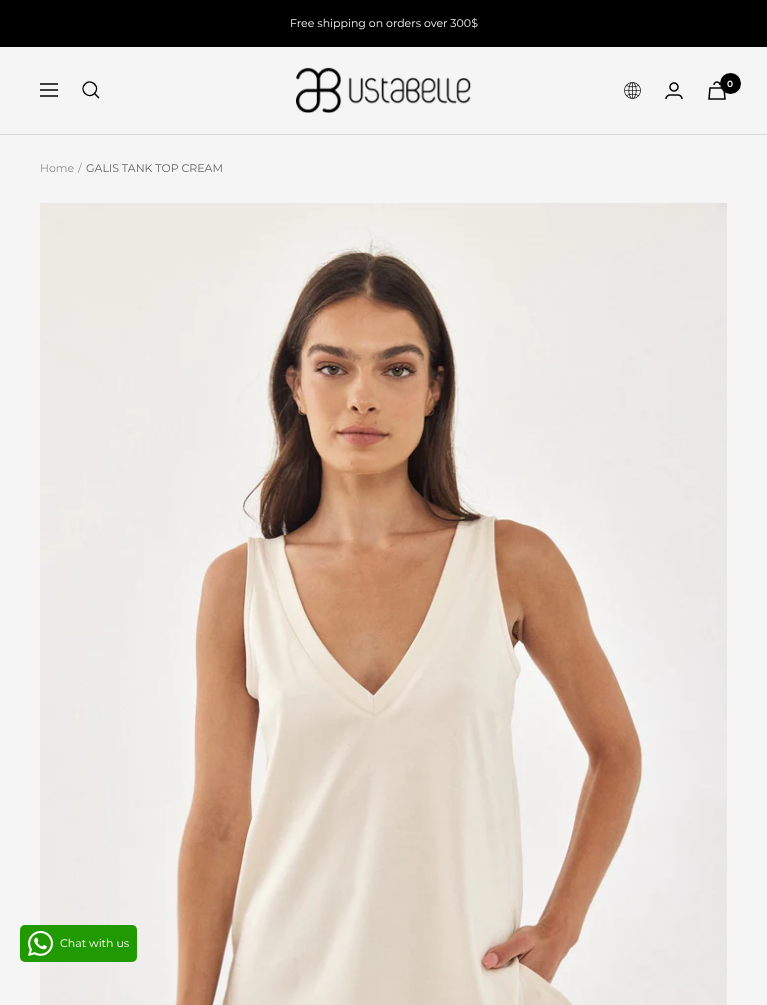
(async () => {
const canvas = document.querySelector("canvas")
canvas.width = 767
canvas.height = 1005
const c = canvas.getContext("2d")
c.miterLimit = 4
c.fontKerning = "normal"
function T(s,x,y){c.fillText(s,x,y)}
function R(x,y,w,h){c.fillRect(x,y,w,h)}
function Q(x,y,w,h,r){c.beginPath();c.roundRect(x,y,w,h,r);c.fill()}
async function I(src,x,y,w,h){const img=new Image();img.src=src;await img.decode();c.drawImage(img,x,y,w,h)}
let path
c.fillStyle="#f5f5f5"
R(0,0,767,1005)
c.fillStyle="#000"
R(0,0,767,47)
c.font="11px Montserrat"
c.fillStyle="#f5f5f5"
T("Free shipping on orders over 300$",290,27)
c.fillStyle="#d6d6d6"
R(0,134,767,1)
path = new Path2D("M40 84h18m-18 12h18zm0-6h18zm54.5 3.5c6-6.5-3-15.5-9.5-9.5c-6 6.5 3 15.5 9.5 9.5zm0 0l4.5 4.5")
c.strokeStyle="#000"
c.lineWidth=1.5
c.stroke(path)
await I("1.png",296,67,175,46)
await I("2.png",624,82,17,17)
await I("3.png",665,82,18,17)
await I("4.png",708,81,18,19)
c.fillStyle="#000"
c.beginPath()
c.arc(730.5,83.5,10.5,0,7)
c.fill()
c.font="600 9px Montserrat"
c.fillStyle="#f5f5f5"
T("0",727,87)
c.font="11px Montserrat"
c.fillStyle="#919191"
T("Home",40,172)
T("/",78,172)
c.fillStyle="#666"
T("GALIS TANK TOP CREAM",86,172)
await I("5.png",40,203,687,802)
c.fillStyle="#219900"
Q(20,925,117,37,5)
await I("6.png",28,931,25,25)
c.fillStyle="#fff"
T("Chat with us",60,947)
})()
